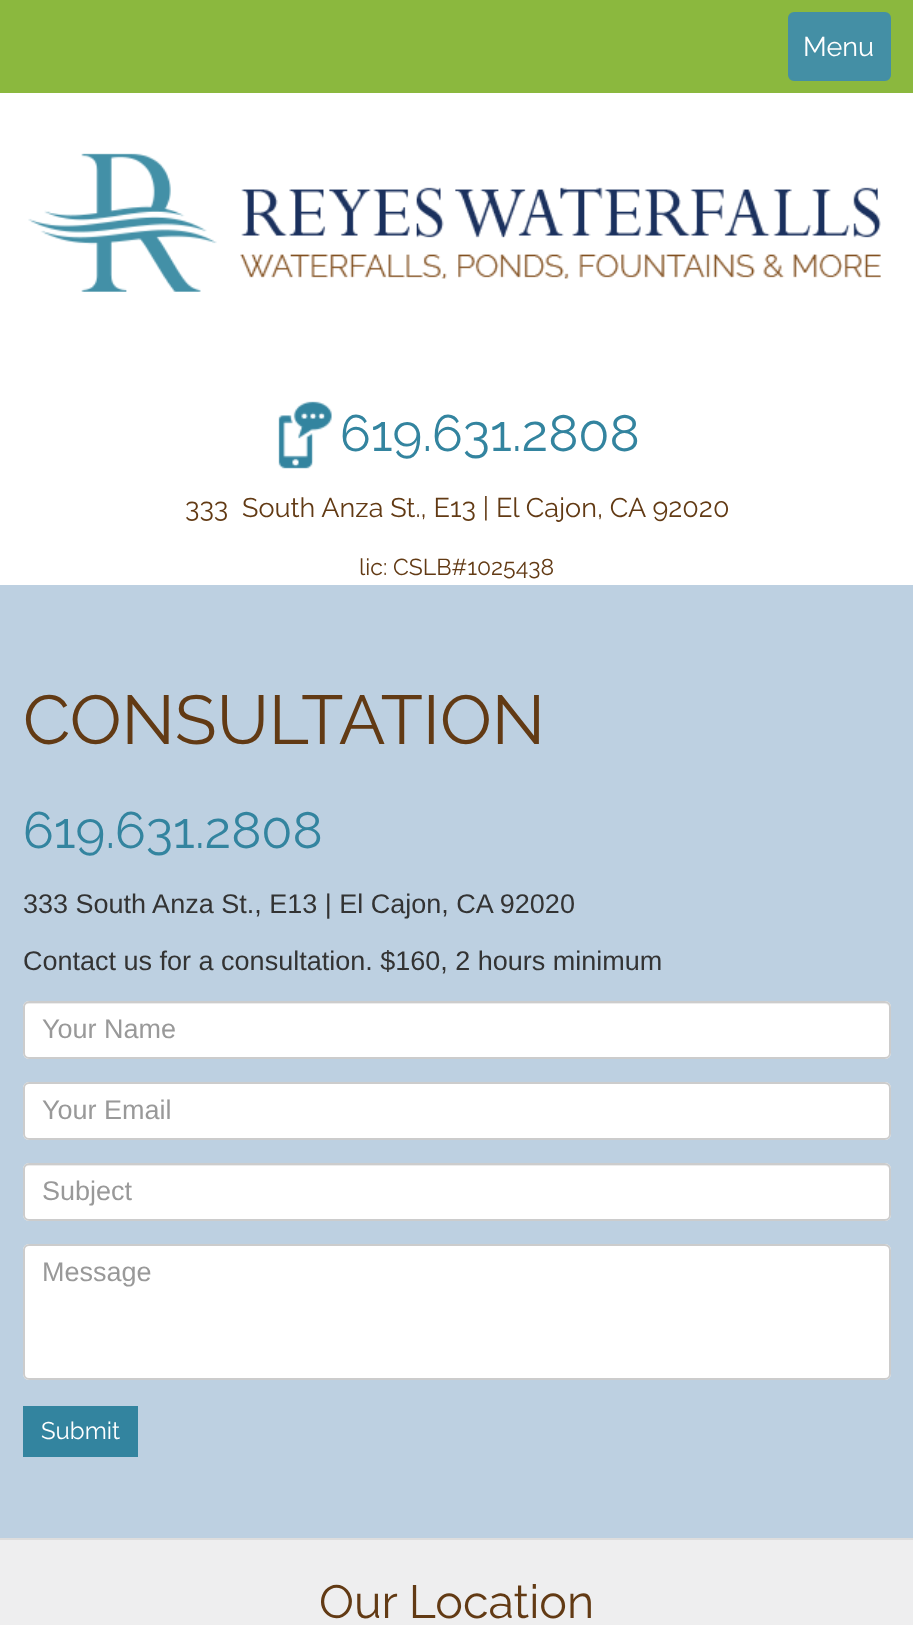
(async () => {
const canvas = document.querySelector("canvas")
canvas.width = 913
canvas.height = 1625
const c = canvas.getContext("2d")
c.miterLimit = 4
c.fontKerning = "normal"
function T(s,x,y){c.fillText(s,x,y)}
function R(x,y,w,h){c.fillRect(x,y,w,h)}
function Q(x,y,w,h,r){c.beginPath();c.roundRect(x,y,w,h,r);c.fill()}
async function I(src,x,y,w,h){const img=new Image();img.src=src;await img.decode();c.drawImage(img,x,y,w,h)}
let path
c.fillStyle="#fff"
R(0,0,913,1625)
c.fillStyle="#8bb83e"
R(0,0,913,93)
c.fillStyle="#448fa5"
c.beginPath()
c.roundRect(789,13,101,67,5)
c.fill()
c.strokeStyle="#448fa5"
c.lineWidth=2
c.stroke()
c.font="27px Raleway"
c.fillStyle="#fff"
T("Menu",803,56)
await I("1.png",28,153,853,139)
await I("2.png",278,401,54,68)
c.font="51px Raleway"
c.fillStyle="#33849f"
T("619.631.2808",340,451)
c.font="27px Raleway"
c.fillStyle="#623a14"
T("333  South Anza St., E13 | El Cajon, CA 92020",185,517)
c.font="23px Raleway"
T("lic: CSLB#1025438",359,575)
c.fillStyle="#bdd0e1"
R(0,585,913,953)
c.font="69px Raleway"
c.fillStyle="#623a14"
T("CONSULTATION",23,744)
c.font="51px Raleway"
c.fillStyle="#33849f"
T("619.631.2808",23,848)
c.font="27px Liberation Sans"
c.fillStyle="#333"
T("333 South Anza St., E13 | El Cajon, CA 92020",23,913)
T("Contact us for a consultation. $160, 2 hours minimum",23,970)
c.fillStyle="#fff"
Q(23,1001,868,58,6)
c.fillStyle="#ececec"
path = new Path2D("M28 1004h857c2 0 5 2 5 4v-1c0-3-2-5-5-5h-856c-3 0-5 2-5 5v1c0-2 2-4 4-4z")
c.fill(path)
c.beginPath()
c.roundRect(24,1002,866,56,5)
c.strokeStyle="#ccc"
c.stroke()
c.fillStyle="#999"
T("Your Name",42,1038)
c.fillStyle="#fff"
Q(23,1082,868,58,6)
c.fillStyle="#ececec"
path = new Path2D("M28 1084h857c2 0 5 3 5 5v-1c0-3-2-5-5-5h-856c-3 0-5 2-5 5v1c0-2 2-5 4-5z")
c.fill(path)
c.beginPath()
c.roundRect(24,1083,866,56,5)
c.stroke()
c.fillStyle="#999"
T("Your Email",42,1119)
c.fillStyle="#fff"
Q(23,1163,868,58,6)
c.fillStyle="#ececec"
path = new Path2D("M28 1166h857c2 0 5 2 5 4v-1c0-3-2-5-5-5h-856c-3 0-5 2-5 5v1c0-2 2-4 4-4z")
c.fill(path)
c.beginPath()
c.roundRect(24,1164,866,56,5)
c.stroke()
c.fillStyle="#999"
T("Subject",42,1200)
c.fillStyle="#fff"
Q(23,1244,868,136,6)
c.fillStyle="#ececec"
path = new Path2D("M28 1246h857c2 0 5 3 5 5v-1c0-3-2-5-5-5h-856c-3 0-5 2-5 5v1c0-2 2-5 4-5z")
c.fill(path)
c.beginPath()
c.roundRect(24,1245,866,134,5)
c.stroke()
c.fillStyle="#999"
T("Message",42,1281)
c.fillStyle="#33849f"
R(23,1406,115,51)
c.font="24px Raleway"
c.fillStyle="#fff"
T("Submit",41,1439)
c.fillStyle="#eeeeef"
R(0,1540,913,85)
c.fillStyle="#ddd"
R(0,1538,913,2)
c.font="46.5px Raleway"
c.fillStyle="#623a14"
T("Our Location",319,1618)
})()
